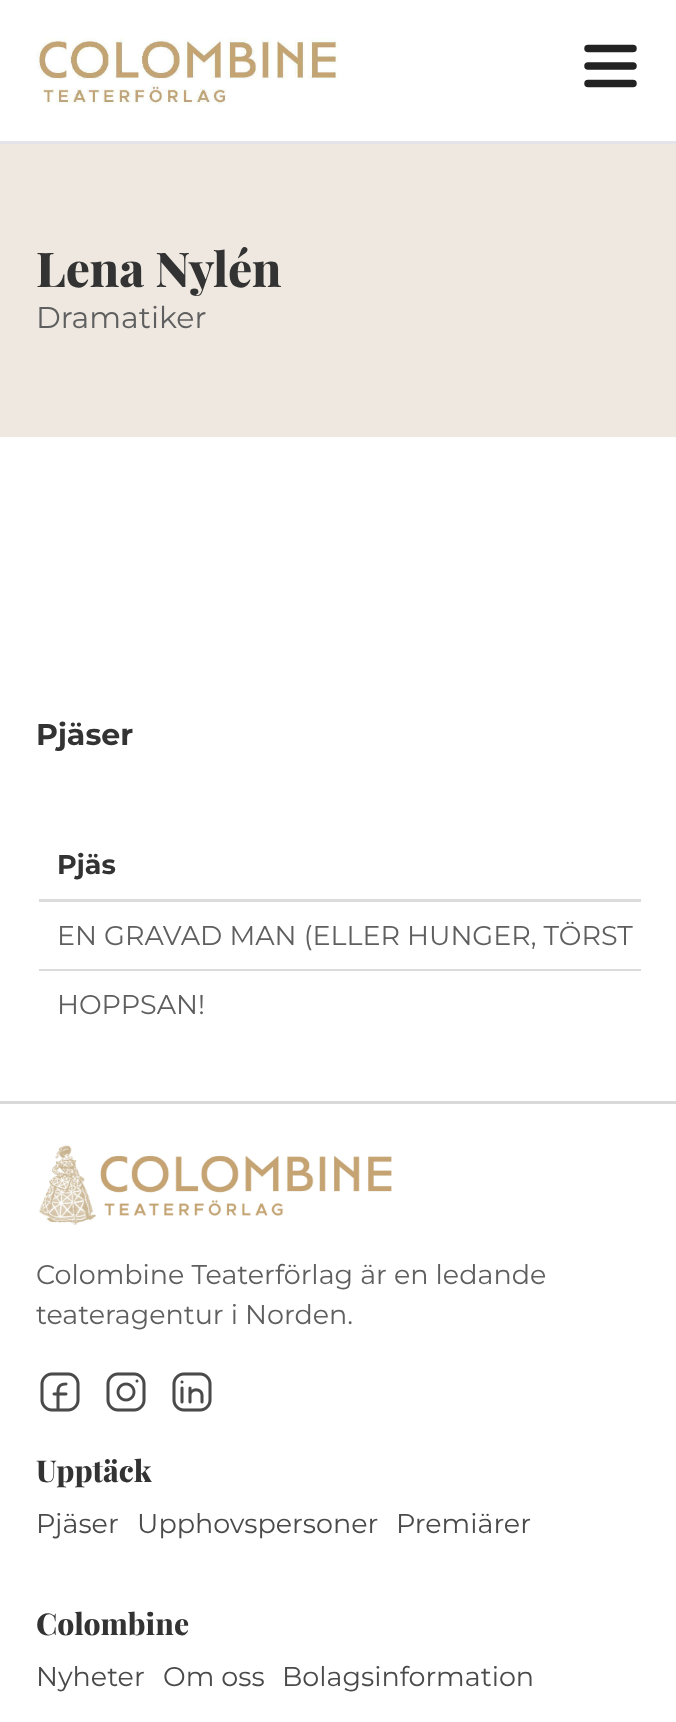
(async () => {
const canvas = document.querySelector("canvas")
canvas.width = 676
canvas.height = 1722
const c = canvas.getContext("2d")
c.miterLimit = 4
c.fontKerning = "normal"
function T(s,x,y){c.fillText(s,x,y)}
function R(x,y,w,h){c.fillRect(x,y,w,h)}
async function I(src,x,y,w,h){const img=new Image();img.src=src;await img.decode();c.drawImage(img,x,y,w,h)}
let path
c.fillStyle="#fff"
R(0,0,676,1722)
c.fillStyle="#e4e3e9"
R(0,141,676,3)
await I("1.png",36,38,303,67)
path = new Path2D("M588 48.5h45m-45 17.5h45m-45 17.5h45")
c.strokeStyle="#222"
c.lineWidth=7.5
c.lineCap="round"
c.lineJoin="round"
c.stroke(path)
c.fillStyle="#eee8e0"
R(0,144,676,293)
c.font="800 48px Playfair Display"
c.fillStyle="#333"
T("Lena Nylén",36,287)
c.font="30px Montserrat"
c.fillStyle="#5f5f5f"
T("Dramatiker",36,328)
c.font="bold 30px Montserrat"
c.fillStyle="#333"
T("Pjäser",36,745)
c.fillStyle="#dbdbdb"
R(39,899,602,3)
c.font="bold 27px Montserrat"
c.fillStyle="#333"
T("Pjäs",57,874)
c.fillStyle="#dbdbdb"
R(39,969,602,2)
c.font="27px Montserrat"
c.fillStyle="#5f5f5f"
T("EN GRAVAD MAN (ELLER HUNGER, TÖRST",57,945)
T("HOPPSAN!",57,1014)
c.fillStyle="#d9d9d9"
R(0,1101,676,3)
await I("2.png",39,1145,353,80)
c.fillStyle="#5f5f5f"
T("Colombine Teaterförlag är en ledande",36,1284)
T("teateragentur i Norden.",36,1324)
await I("3.png",40,1372,40,40)
await I("4.png",106,1372,40,40)
await I("5.png",172,1372,40,40)
c.font="800 30px Playfair Display"
c.fillStyle="#333"
T("Upptäck",36,1482)
c.font="27px Montserrat"
c.fillStyle="#4a4a4a"
T("Pjäser",36,1533)
T("Upphovspersoner",137,1533)
T("Premiärer",396,1533)
c.font="800 30px Playfair Display"
c.fillStyle="#333"
T("Colombine",36,1635)
c.font="27px Montserrat"
c.fillStyle="#4a4a4a"
T("Nyheter",36,1686)
T("Om oss",163,1686)
T("Bolagsinformation",282,1686)
})()
